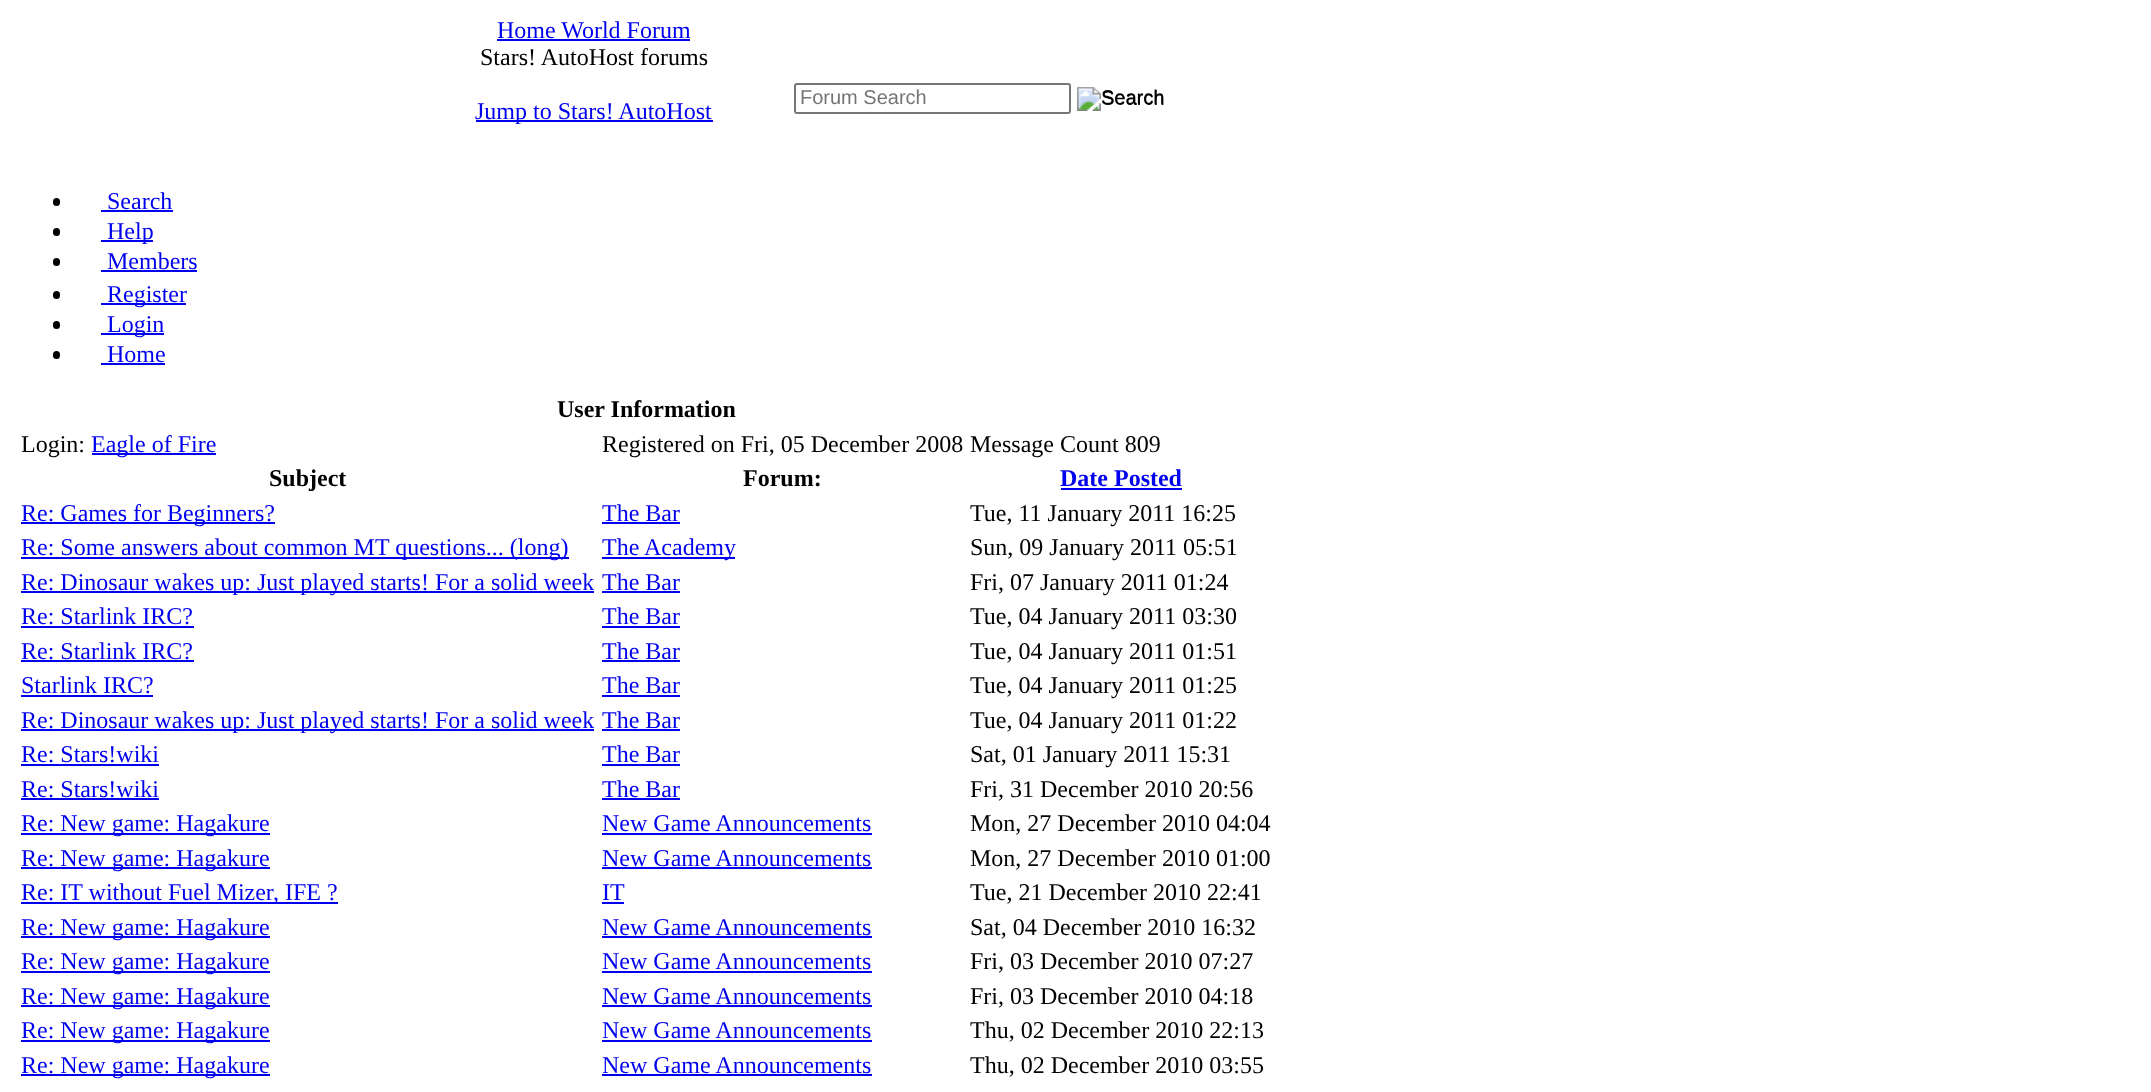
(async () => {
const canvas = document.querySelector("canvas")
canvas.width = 2151
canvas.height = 1092
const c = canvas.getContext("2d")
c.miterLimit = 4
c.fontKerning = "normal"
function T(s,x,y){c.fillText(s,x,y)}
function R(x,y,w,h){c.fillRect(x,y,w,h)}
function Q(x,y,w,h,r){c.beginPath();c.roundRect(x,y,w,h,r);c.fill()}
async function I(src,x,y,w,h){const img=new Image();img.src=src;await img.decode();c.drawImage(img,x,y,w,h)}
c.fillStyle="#fff"
R(0,0,2151,1092)
c.font="24px Liberation Serif"
c.fillStyle="#00e"
T("Home World Forum",497,38)
R(497,39,193,2)
c.fillStyle="#000"
T("Stars! AutoHost forums",480,65)
c.fillStyle="#00e"
R(476,120,237,2)
T("Jump to Stars! AutoHost",475,119)
c.beginPath()
c.roundRect(795,84,275,29,2)
c.strokeStyle="#767676"
c.lineWidth=2
c.stroke()
c.font="20px Liberation Sans"
c.fillStyle="#757575"
T("Forum Search",800,104)
await I("1.png",1077,87,87,24)
c.fillStyle="#000"
T("Search",1101,104)
Q(53,198,7,8,3.5)
c.font="24px Liberation Serif"
c.fillStyle="#00e"
T("Search",107,209)
R(101,210,72,2)
c.fillStyle="#000"
Q(53,228,7,8,3.5)
c.fillStyle="#00e"
R(101,240,52,2)
T("Help",107,239)
c.fillStyle="#000"
Q(53,258,7,8,3.5)
c.fillStyle="#00e"
T("Members",107,269)
R(101,270,96,2)
c.fillStyle="#000"
Q(53,291,7,8,3.5)
c.fillStyle="#00e"
R(101,303,85,2)
T("Register",107,302)
c.fillStyle="#000"
Q(53,321,7,8,3.5)
c.fillStyle="#00e"
R(101,333,63,2)
T("Login",107,332)
c.fillStyle="#000"
Q(53,351,7,8,3.5)
c.fillStyle="#00e"
T("Home",107,362)
R(101,363,64,2)
c.font="bold 24px Liberation Serif"
c.fillStyle="#000"
T("User Information",557,417)
c.font="24px Liberation Serif"
T("Login:",21,452)
c.fillStyle="#00e"
R(92,453,124,2)
T("Eagle of Fire",91,452)
c.fillStyle="#000"
T("Registered on Fri, 05 December 2008",602,452)
T("Message Count 809",970,452)
c.font="bold 24px Liberation Serif"
T("Subject",269,486)
T("Forum:",743,486)
c.fillStyle="#00e"
T("Date Posted",1060,486)
R(1061,488,121,2)
R(21,522,254,2)
c.font="24px Liberation Serif"
T("Re: Games for Beginners?",21,521)
T("The Bar",602,521)
R(602,522,78,2)
c.fillStyle="#000"
T("Tue, 11 January 2011 16:25",970,521)
c.fillStyle="#00e"
R(21,557,548,2)
T("Re: Some answers about common MT questions... (long)",21,555)
R(602,557,133,2)
T("The Academy",602,555)
c.fillStyle="#000"
T("Sun, 09 January 2011 05:51",970,555)
c.fillStyle="#00e"
R(21,591,573,2)
T("Re: Dinosaur wakes up: Just played starts! For a solid week",21,590)
T("The Bar",602,590)
R(602,591,78,2)
c.fillStyle="#000"
T("Fri, 07 January 2011 01:24",970,590)
c.fillStyle="#00e"
T("Re: Starlink IRC?",21,624)
R(21,626,173,2)
T("The Bar",602,624)
R(602,626,78,2)
c.fillStyle="#000"
T("Tue, 04 January 2011 03:30",970,624)
c.fillStyle="#00e"
T("Re: Starlink IRC?",21,659)
R(21,660,173,2)
T("The Bar",602,659)
R(602,660,78,2)
c.fillStyle="#000"
T("Tue, 04 January 2011 01:51",970,659)
c.fillStyle="#00e"
T("Starlink IRC?",21,693)
R(21,695,132,2)
T("The Bar",602,693)
R(602,695,78,2)
c.fillStyle="#000"
T("Tue, 04 January 2011 01:25",970,693)
c.fillStyle="#00e"
R(21,729,573,2)
T("Re: Dinosaur wakes up: Just played starts! For a solid week",21,728)
T("The Bar",602,728)
R(602,729,78,2)
c.fillStyle="#000"
T("Tue, 04 January 2011 01:22",970,728)
c.fillStyle="#00e"
T("Re: Stars!wiki",21,762)
R(21,764,138,2)
T("The Bar",602,762)
R(602,764,78,2)
c.fillStyle="#000"
T("Sat, 01 January 2011 15:31",970,762)
c.fillStyle="#00e"
T("Re: Stars!wiki",21,797)
R(21,798,138,2)
T("The Bar",602,797)
R(602,798,78,2)
c.fillStyle="#000"
T("Fri, 31 December 2010 20:56",970,797)
c.fillStyle="#00e"
R(21,833,249,2)
T("Re: New game: Hagakure",21,831)
T("New Game Announcements",602,831)
R(602,833,270,2)
c.fillStyle="#000"
T("Mon, 27 December 2010 04:04",970,831)
c.fillStyle="#00e"
R(21,867,249,2)
T("Re: New game: Hagakure",21,866)
T("New Game Announcements",602,866)
R(602,867,270,2)
c.fillStyle="#000"
T("Mon, 27 December 2010 01:00",970,866)
c.fillStyle="#00e"
R(21,902,317,2)
T("Re: IT without Fuel Mizer, IFE ?",21,900)
T("IT",602,900)
R(602,902,22,2)
c.fillStyle="#000"
T("Tue, 21 December 2010 22:41",970,900)
c.fillStyle="#00e"
R(21,936,249,2)
T("Re: New game: Hagakure",21,935)
T("New Game Announcements",602,935)
R(602,936,270,2)
c.fillStyle="#000"
T("Sat, 04 December 2010 16:32",970,935)
c.fillStyle="#00e"
R(21,971,249,2)
T("Re: New game: Hagakure",21,969)
T("New Game Announcements",602,969)
R(602,971,270,2)
c.fillStyle="#000"
T("Fri, 03 December 2010 07:27",970,969)
c.fillStyle="#00e"
R(21,1005,249,2)
T("Re: New game: Hagakure",21,1004)
T("New Game Announcements",602,1004)
R(602,1005,270,2)
c.fillStyle="#000"
T("Fri, 03 December 2010 04:18",970,1004)
c.fillStyle="#00e"
R(21,1040,249,2)
T("Re: New game: Hagakure",21,1038)
T("New Game Announcements",602,1038)
R(602,1040,270,2)
c.fillStyle="#000"
T("Thu, 02 December 2010 22:13",970,1038)
c.fillStyle="#00e"
R(21,1074,249,2)
T("Re: New game: Hagakure",21,1073)
T("New Game Announcements",602,1073)
R(602,1074,270,2)
c.fillStyle="#000"
T("Thu, 02 December 2010 03:55",970,1073)
})()
